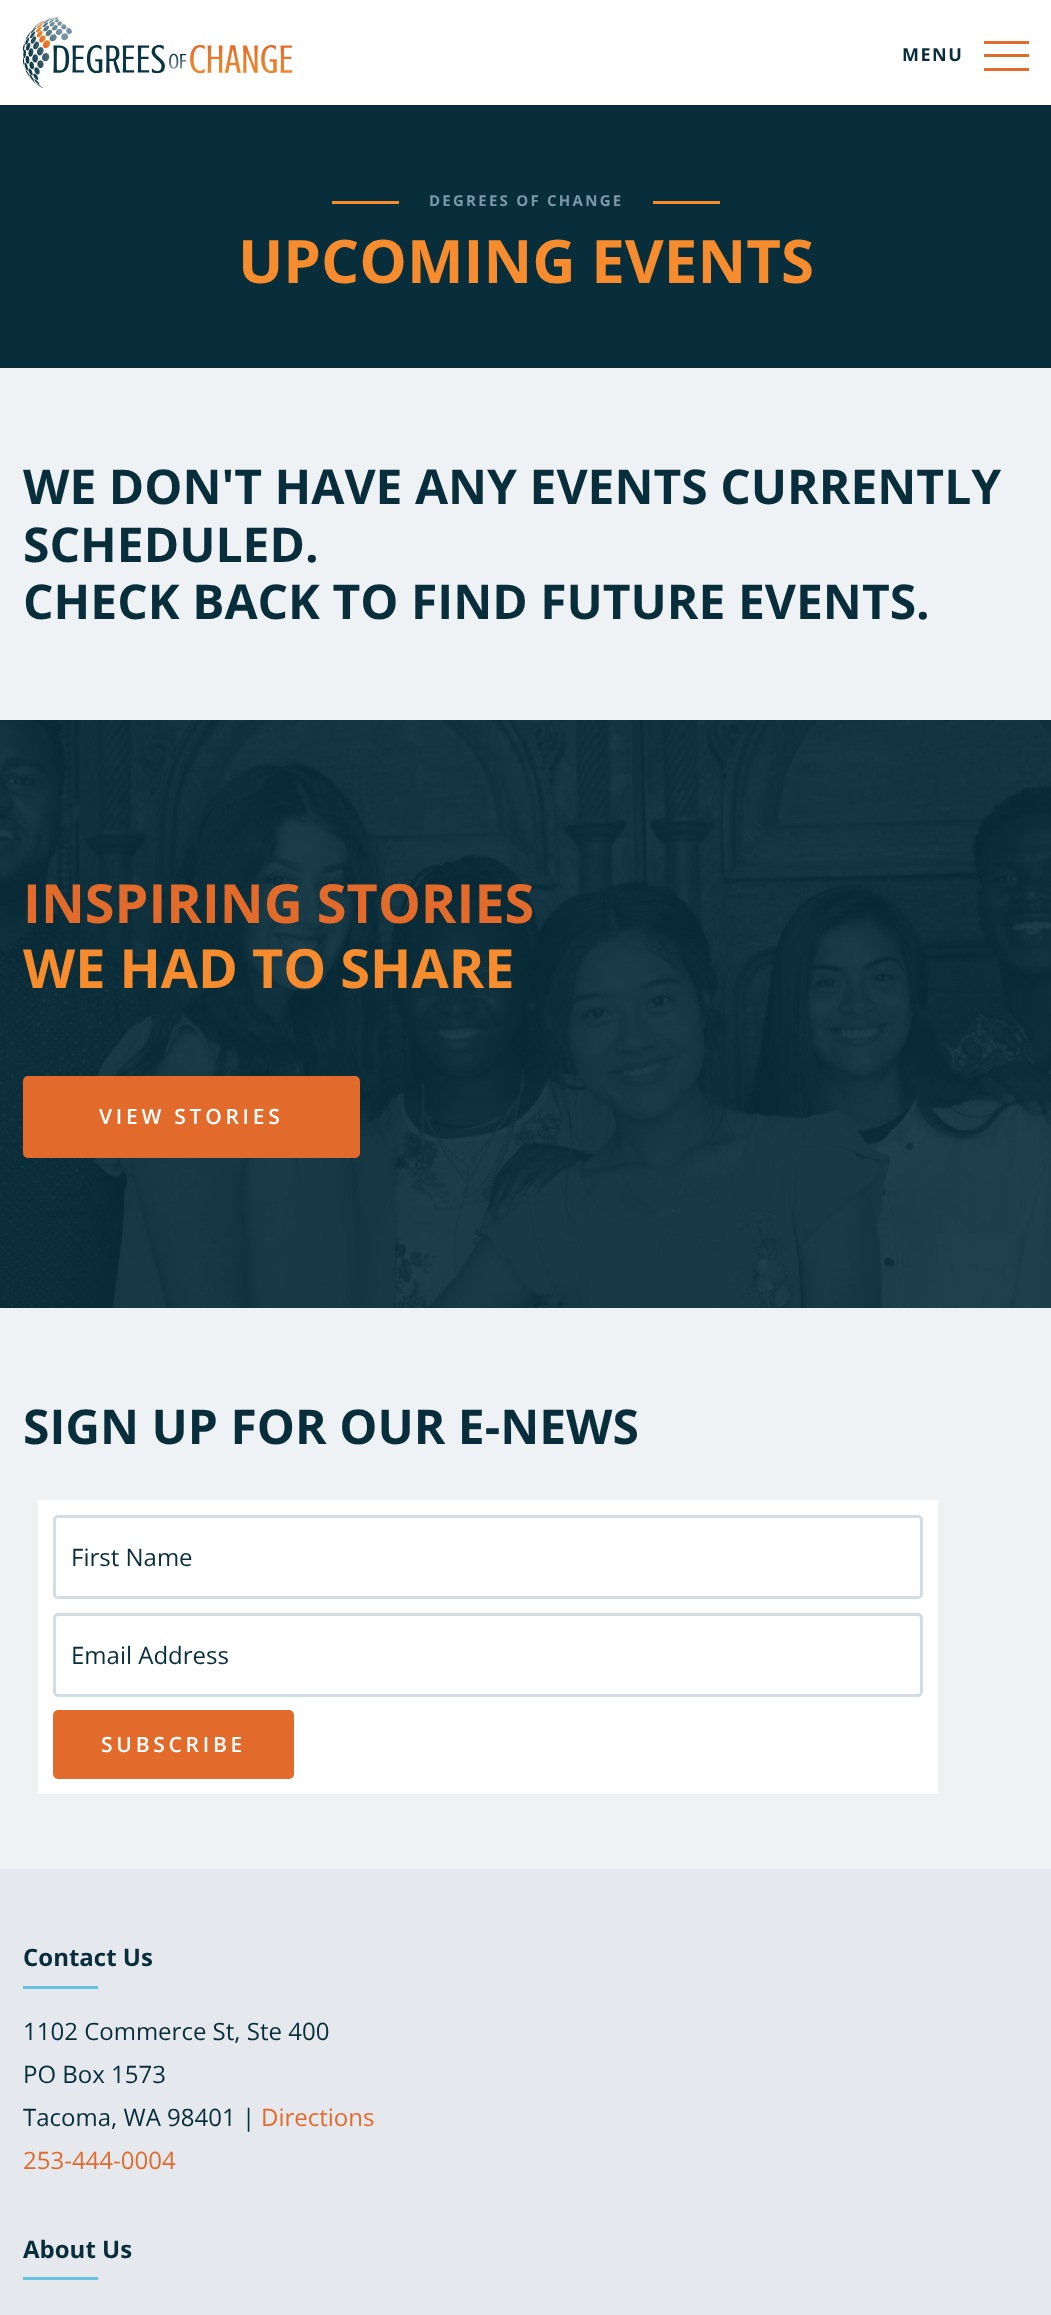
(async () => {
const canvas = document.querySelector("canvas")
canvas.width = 1051
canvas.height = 2315
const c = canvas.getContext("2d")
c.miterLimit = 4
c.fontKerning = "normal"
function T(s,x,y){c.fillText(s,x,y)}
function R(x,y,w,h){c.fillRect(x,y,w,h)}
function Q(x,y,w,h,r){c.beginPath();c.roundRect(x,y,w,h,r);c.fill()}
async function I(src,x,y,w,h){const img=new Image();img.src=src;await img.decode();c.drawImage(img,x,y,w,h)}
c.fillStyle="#fff"
R(0,0,1051,2315)
await I("1.png",23,17,270,72)
c.letterSpacing="1.5px"
c.font="bold 18px Open Sans"
c.fillStyle="#082e3c"
T("MENU",902,61)
c.fillStyle="#e26b2b"
R(984,41,45,3)
R(984,54,45,3)
R(984,68,45,3)
c.fillStyle="#eff2f5"
R(0,368,1051,352)
c.fillStyle="#082e3c"
R(0,105,1051,263)
c.fillStyle="#f68c2d"
R(332,201,67,3)
c.letterSpacing="2.25px"
c.font="bold 15px Open Sans"
c.fillStyle="#7c98ab"
T("DEGREES OF CHANGE",429,206)
c.fillStyle="#f68c2d"
R(653,201,67,3)
c.letterSpacing="0px"
c.font="bold 60px Open Sans"
T("UPCOMING EVENTS",238,283)
c.font="bold 48px Open Sans"
c.fillStyle="#082e3c"
T("WE DON'T HAVE ANY EVENTS CURRENTLY",23,504)
T("SCHEDULED.",23,562)
T("CHECK BACK TO FIND FUTURE EVENTS.",23,619)
await I("2.png",0,720,1051,588)
c.font="bold 54px Open Sans"
c.fillStyle="#e26b2b"
T("INSPIRING STORIES",23,923)
c.fillStyle="#f68c2d"
T("WE HAD TO SHARE",23,988)
c.fillStyle="#e26b2b"
Q(23,1076,337,82,5)
c.letterSpacing="3.75px"
c.font="600 21px Open Sans"
c.fillStyle="#fff"
T("VIEW STORIES",99,1124)
c.fillStyle="#eff2f5"
R(0,1308,1051,561)
c.letterSpacing="0px"
c.font="bold 48px Open Sans"
c.fillStyle="#082e3c"
T("SIGN UP FOR OUR E-NEWS",23,1444)
c.fillStyle="#fff"
R(38,1500,900,294)
c.beginPath()
c.roundRect(54.5,1516.5,867,81,3.5)
c.strokeStyle="#d2dce2"
c.lineWidth=3
c.stroke()
c.font="24px Open Sans"
c.fillStyle="#082e3c"
T("First Name",71,1566)
c.beginPath()
c.roundRect(54.5,1614.5,867,81,3.5)
c.stroke()
T("Email Address",71,1664)
c.fillStyle="#e26b2b"
Q(53,1710,241,69,5)
c.letterSpacing="3.75px"
c.font="600 21px Open Sans"
c.fillStyle="#fff"
T("SUBSCRIBE",101,1752)
c.fillStyle="#e5e9ed"
R(0,1869,1051,446)
c.letterSpacing="0px"
c.font="bold 24px Open Sans"
c.fillStyle="#082e3c"
T("Contact Us",23,1966)
c.fillStyle="#64c2e0"
R(23,1986,75,3)
c.font="24px Open Sans"
c.fillStyle="#082e3c"
T("1102 Commerce St, Ste 400",23,2040)
T("PO Box 1573",23,2083)
T("Tacoma, WA 98401 |",23,2126)
c.fillStyle="#e26b2b"
T("Directions",261,2126)
T("253-444-0004",23,2169)
c.font="bold 24px Open Sans"
c.fillStyle="#082e3c"
T("About Us",23,2258)
c.fillStyle="#64c2e0"
R(23,2277,75,3)
})()
